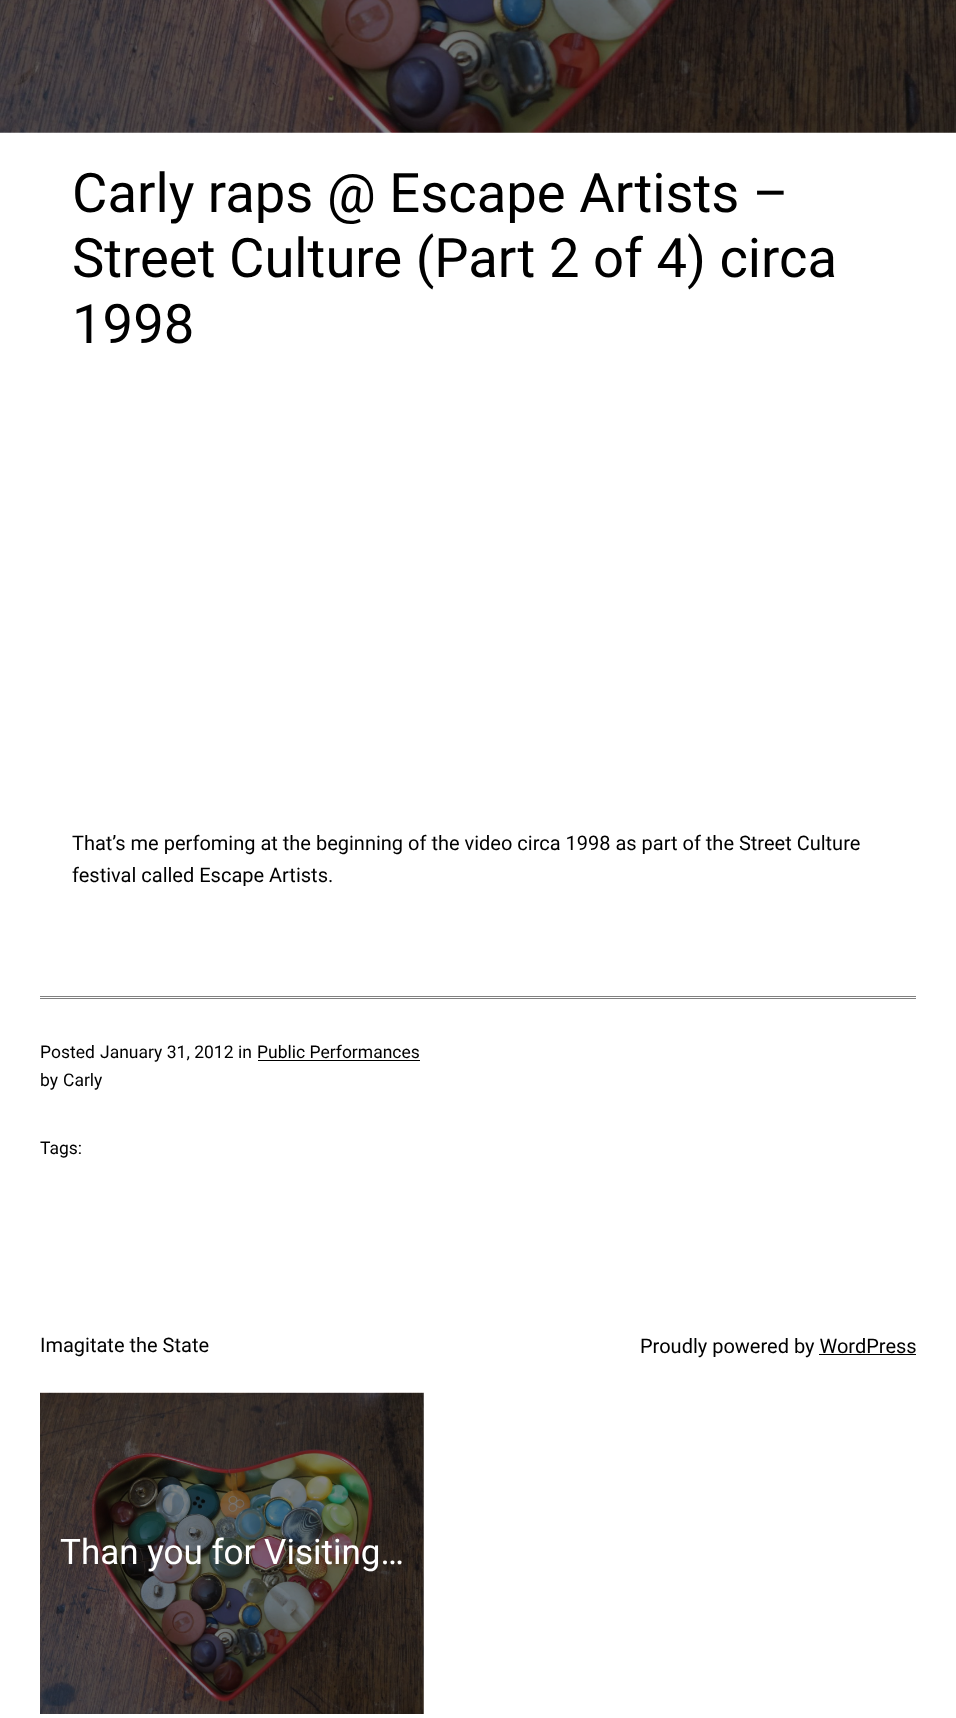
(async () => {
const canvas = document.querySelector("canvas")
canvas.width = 956
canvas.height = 1718
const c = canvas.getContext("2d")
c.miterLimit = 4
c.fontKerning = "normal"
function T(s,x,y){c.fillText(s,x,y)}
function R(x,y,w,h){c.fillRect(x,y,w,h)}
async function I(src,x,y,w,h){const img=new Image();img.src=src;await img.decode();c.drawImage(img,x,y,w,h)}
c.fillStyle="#fff"
R(0,0,956,1718)
await I("1.png",0,0,956,133)
c.font="54.4px Roboto"
c.fillStyle="#000"
T("Carly raps @ Escape Artists –",72,212)
T("Street Culture (Part 2 of 4) circa",72,277)
T("1998",72,343)
c.font="20px Roboto"
T("That’s me perfoming at the beginning of the video circa 1998 as part of the Street Culture",72,850)
T("festival called Escape Artists.",72,882)
c.fillStyle="#808080"
R(40,996,876,1)
R(40,998,876,1)
c.font="17.5px Roboto"
c.fillStyle="#000"
T("Posted",40,1058)
T("January 31, 2012",100,1058)
T("in",238,1058)
T("Public Performances",257,1058)
R(258,1060,162,1)
T("by",40,1086)
T("Carly",63,1086)
T("Tags:",40,1154)
c.font="20px Roboto"
T("Imagitate the State",40,1352)
T("Proudly powered by WordPress",640,1353)
R(819,1354,97,1)
await I("2.png",40,1392,384,322)
c.font="35px Roboto"
c.fillStyle="#fff"
T("Than you for Visiting…",60,1564)
})()
